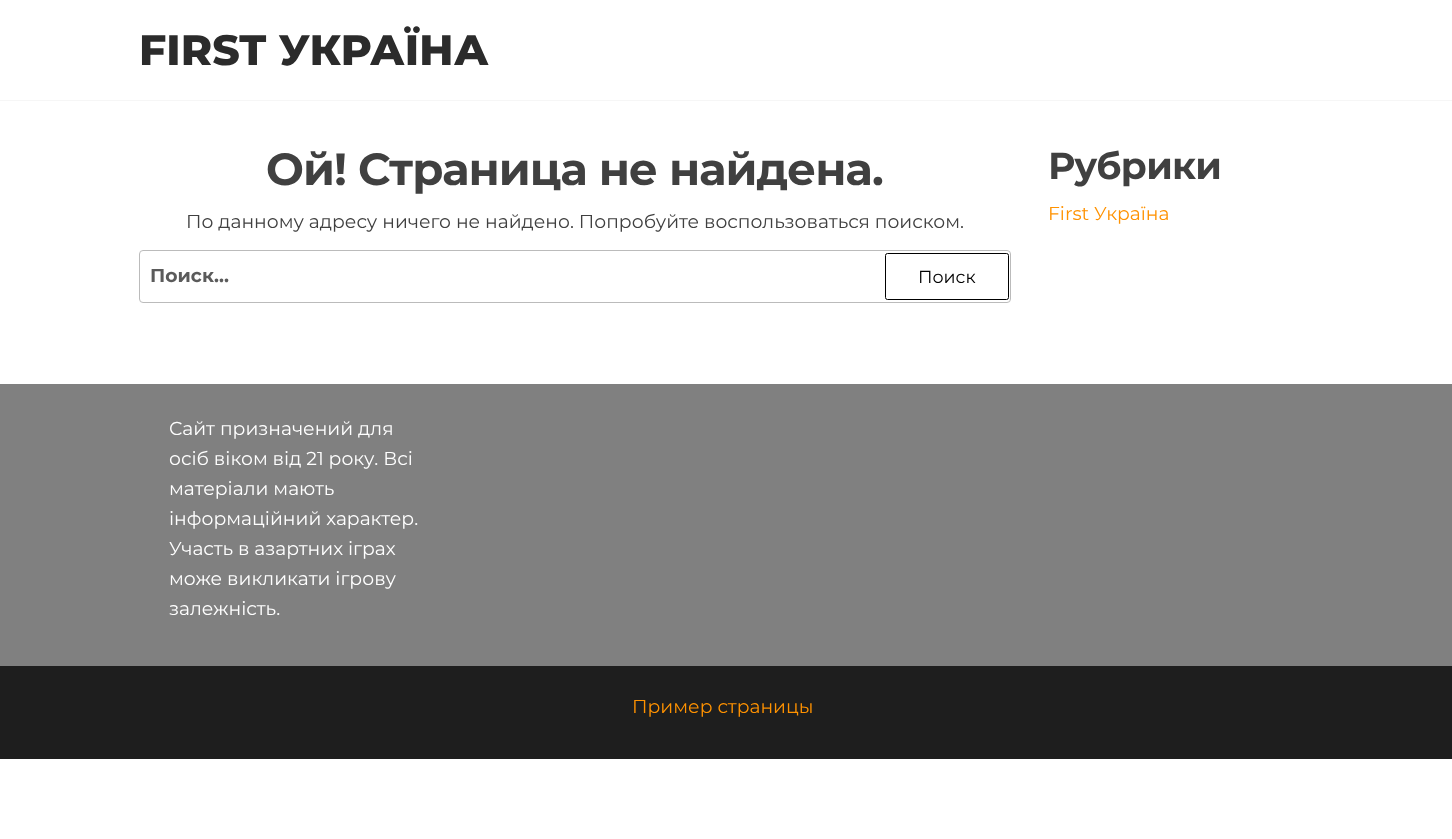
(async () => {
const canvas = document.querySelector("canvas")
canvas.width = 1452
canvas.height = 839
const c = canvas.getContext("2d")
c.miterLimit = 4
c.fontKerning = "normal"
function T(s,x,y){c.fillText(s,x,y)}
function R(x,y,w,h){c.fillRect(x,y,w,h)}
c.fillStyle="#fff"
R(0,0,1452,839)
c.fillStyle="#f6f6f6"
R(0,100,1452,1)
c.font="800 42.5px Montserrat"
c.fillStyle="#2b2b2b"
T("FIRST УКРАЇНА",139,65)
c.letterSpacing="-0.9px"
c.font="bold 45px Montserrat"
c.fillStyle="#404040"
T("Ой! Страница не найдена.",266,185)
c.letterSpacing="0px"
c.font="18.75px Montserrat"
T("По данному адресу ничего не найдено. Попробуйте воспользоваться поиском.",186,228)
c.beginPath()
c.roundRect(139.5,250.5,871,52,3.5)
c.strokeStyle="#bbb"
c.stroke()
c.font="bold 18.75px Montserrat"
c.fillStyle="#5b5b5b"
T("Поиск…",150,282)
c.beginPath()
c.roundRect(885.5,253.5,123,46,2)
c.strokeStyle="#000"
c.stroke()
c.font="17.5px Montserrat"
c.fillStyle="#000"
T("Поиск",918,283)
c.letterSpacing="-0.75px"
c.font="bold 37.5px Montserrat"
c.fillStyle="#404040"
T("Рубрики",1048,179)
c.letterSpacing="0px"
c.font="18.75px Montserrat"
c.fillStyle="#ff9200"
T("First Україна",1048,220)
c.fillStyle="#808080"
R(0,384,1452,282)
c.fillStyle="#fff"
T("Сайт призначений для",169,435)
T("осіб віком від 21 року. Всі",169,465)
T("матеріали мають",169,495)
T("інформаційний характер.",169,525)
T("Участь в азартних іграх",169,555)
T("може викликати ігрову",169,585)
T("залежність.",169,615)
c.fillStyle="#1e1e1e"
R(0,666,1452,93)
c.fillStyle="#ff9200"
T("Пример страницы",632,713)
})()
